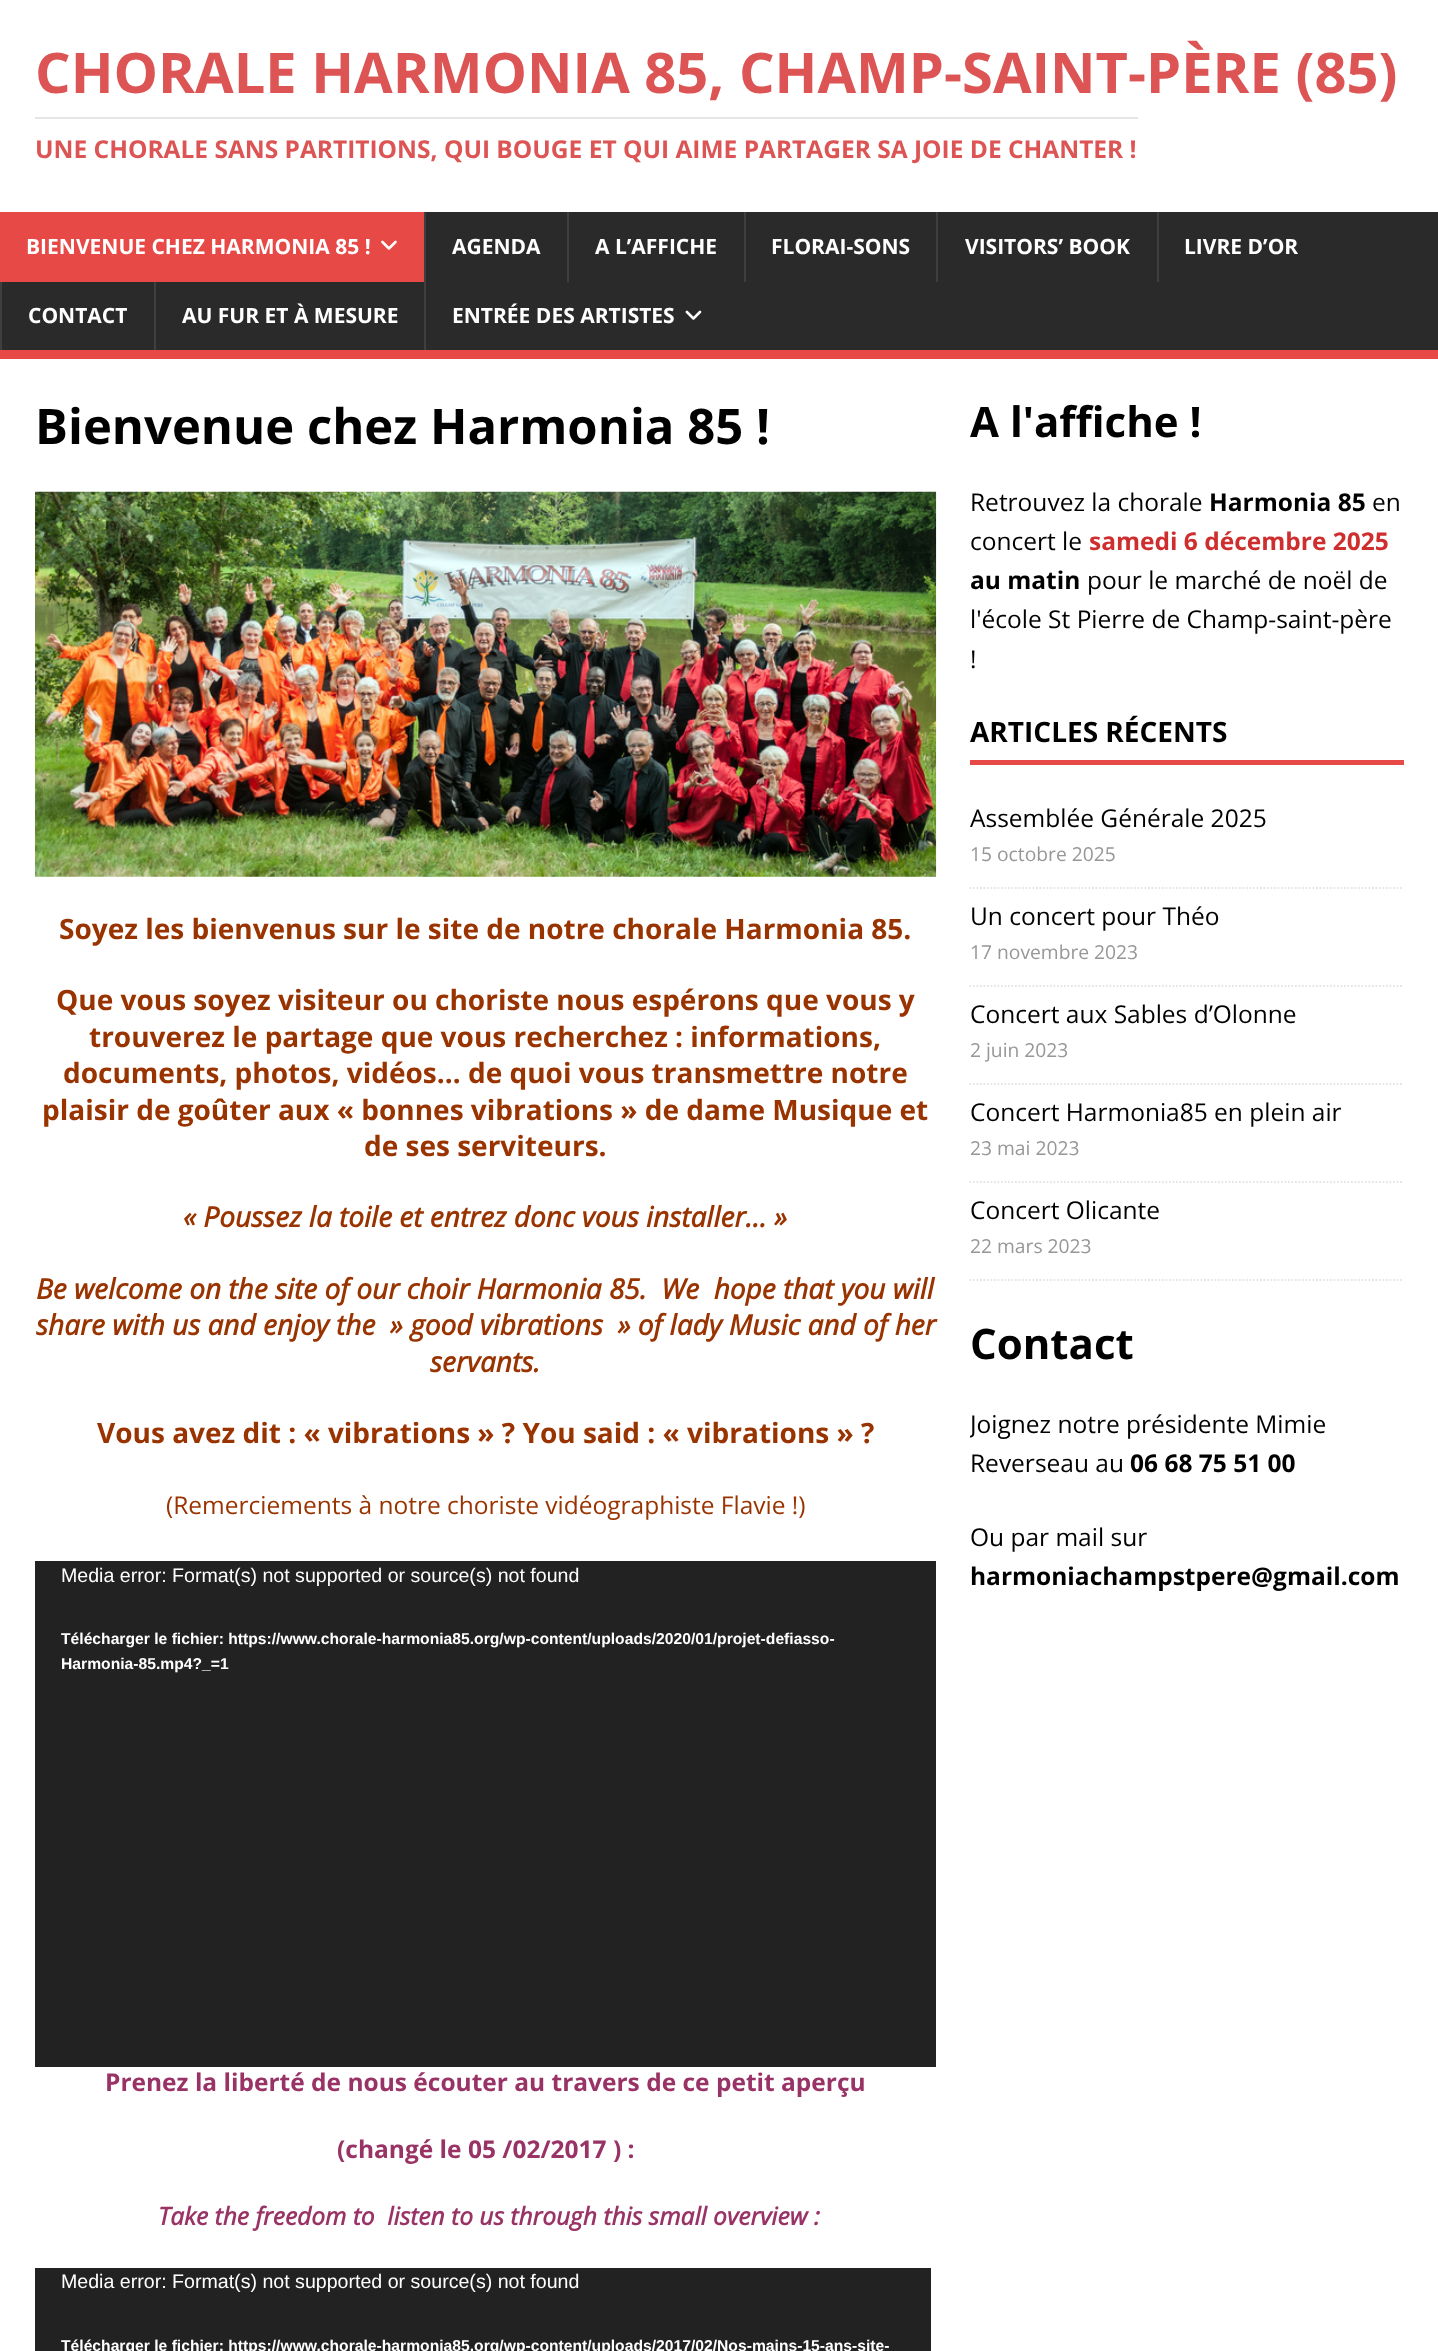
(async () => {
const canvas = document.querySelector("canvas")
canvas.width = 1438
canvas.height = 2351
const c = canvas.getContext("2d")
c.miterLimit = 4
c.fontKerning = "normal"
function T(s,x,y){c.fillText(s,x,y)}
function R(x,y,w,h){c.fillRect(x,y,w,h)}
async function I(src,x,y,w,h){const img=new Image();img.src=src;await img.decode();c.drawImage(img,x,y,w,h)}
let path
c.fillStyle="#fff"
R(0,0,1438,2351)
c.font="bold 56px Open Sans"
c.fillStyle="#dd5454"
T("CHORALE HARMONIA 85, CHAMP-SAINT-PÈRE (85)",35,93)
c.fillStyle="#e5e5e5"
R(35,117,1103,2)
c.font="bold 24.5px Open Sans"
c.fillStyle="#dd5454"
T("UNE CHORALE SANS PARTITIONS, QUI BOUGE ET QUI AIME PARTAGER SA JOIE DE CHANTER !",35,158)
c.fillStyle="#2a2a2a"
R(2,212,1436,138)
c.fillStyle="#e64946"
R(0,350,1438,9)
R(0,212,424,70)
c.font="bold 21px Open Sans"
c.fillStyle="#fff"
T("BIENVENUE CHEZ HARMONIA 85 !",26,254)
await I("1.png",381,240,16,10)
c.fillStyle="#3f3f3f"
R(424,212,2,138)
c.fillStyle="#fff"
T("AGENDA",452,254)
c.fillStyle="#3f3f3f"
R(567,212,2,70)
c.fillStyle="#fff"
T("A L’AFFICHE",595,254)
c.fillStyle="#3f3f3f"
R(744,212,2,70)
c.fillStyle="#fff"
T("FLORAI-SONS",771,254)
c.fillStyle="#3f3f3f"
R(936,212,2,70)
c.fillStyle="#fff"
T("VISITORS’ BOOK",965,254)
c.fillStyle="#3f3f3f"
R(1157,212,2,70)
c.fillStyle="#fff"
T("LIVRE D’OR",1184,254)
c.fillStyle="#3f3f3f"
R(0,282,2,68)
c.fillStyle="#fff"
T("CONTACT",28,323)
c.fillStyle="#3f3f3f"
R(154,282,2,68)
c.fillStyle="#fff"
T("AU FUR ET À MESURE",182,323)
T("ENTRÉE DES ARTISTES",452,323)
await I("2.png",685,310,17,10)
c.font="bold 49px Open Sans"
c.fillStyle="#000"
T("Bienvenue chez Harmonia 85 !",35,444)
await I("3.png",35,491,902,386)
c.font="bold 28px Open Sans"
c.fillStyle="#930"
T("Soyez les bienvenus sur le site de notre chorale Harmonia 85.",59,939)
T("Que vous soyez visiteur ou choriste nous espérons que vous y",56,1010)
T("trouverez le partage que vous recherchez : informations,",89,1047)
T("documents, photos, vidéos… de quoi vous transmettre notre",63,1083)
T("plaisir de goûter aux « bonnes vibrations » de dame Musique et",42,1120)
T("de ses serviteurs.",364,1156)
c.font="italic bold 28px Open Sans"
T("« Poussez la toile et entrez donc vous installer… »",183,1227)
T("Be welcome on the site of our choir Harmonia 85.  We  hope that you will",36,1299)
T("share with us and enjoy the  » good vibrations  » of lady Music and of her",36,1335)
T("servants.",430,1372)
c.font="bold 28px Open Sans"
T("Vous avez dit : « vibrations » ? You said : « vibrations » ?",97,1443)
c.font="24.5px Open Sans"
T("(Remerciements à notre choriste vidéographiste Flavie !)",166,1514)
c.fillStyle="#222"
R(35,1561,901,506)
c.font="19.6px Liberation Sans"
c.fillStyle="#fff"
T("Media error: Format(s) not supported or source(s) not found",61,1582)
c.font="bold 15.68px Liberation Sans"
T("Télécharger le fichier: https://www.chorale-harmonia85.org/wp-content/uploads/2020/01/projet-defiasso-",61,1644)
T("Harmonia-85.mp4?_=1",61,1669)
c.font="bold 24.5px Open Sans"
c.fillStyle="#936"
T("Prenez la liberté de nous écouter au travers de ce petit aperçu",105,2091)
T("(changé le 05 /02/2017 ) :",337,2158)
c.font="italic bold 24.5px Open Sans"
T("Take the freedom to  listen to us through this small overview :",158,2225)
c.fillStyle="#222"
R(35,2268,896,83)
c.font="19.6px Liberation Sans"
c.fillStyle="#fff"
T("Media error: Format(s) not supported or source(s) not found",61,2288)
c.font="bold 15.68px Liberation Sans"
T("Télécharger le fichier: https://www.chorale-harmonia85.org/wp-content/uploads/2017/02/Nos-mains-15-ans-site-",61,2351)
c.font="bold 42px Open Sans"
c.fillStyle="#000"
T("A l'affiche !",970,437)
c.font="24.5px Open Sans"
T("Retrouvez la chorale",970,511)
c.font="bold 24.5px Open Sans"
T("Harmonia 85",1209,511)
c.font="24.5px Open Sans"
T("en",1372,511)
T("concert le",970,550)
c.font="bold 24.5px Open Sans"
c.fillStyle="#cf2e2e"
T("samedi 6 décembre 2025",1089,550)
c.fillStyle="#000"
T("au matin",970,589)
c.font="24.5px Open Sans"
T("pour le marché de noël de",1087,589)
T("l'école St Pierre de Champ-saint-père",970,628)
T("!",970,668)
c.fillStyle="#e64946"
R(970,760,434,5)
c.font="bold 28px Open Sans"
c.fillStyle="#000"
T("ARTICLES RÉCENTS",970,742)
path = new Path2D("M969.5 888h434")
c.strokeStyle="#e5e5e5"
c.lineWidth=1.8
c.setLineDash([1.75,1.75])
c.stroke(path)
c.font="24.5px Open Sans"
T("Assemblée Générale 2025",970,827)
c.font="19.25px Open Sans"
c.fillStyle="#979797"
T("15 octobre 2025",970,861)
path = new Path2D("M969.5 986h434")
c.stroke(path)
c.font="24.5px Open Sans"
c.fillStyle="#000"
T("Un concert pour Théo",970,925)
c.font="19.25px Open Sans"
c.fillStyle="#979797"
T("17 novembre 2023",970,959)
path = new Path2D("M969.5 1084h434")
c.stroke(path)
c.font="24.5px Open Sans"
c.fillStyle="#000"
T("Concert aux Sables d’Olonne",970,1023)
c.font="19.25px Open Sans"
c.fillStyle="#979797"
T("2 juin 2023",970,1057)
path = new Path2D("M969.5 1182h434")
c.stroke(path)
c.font="24.5px Open Sans"
c.fillStyle="#000"
T("Concert Harmonia85 en plein air",970,1121)
c.font="19.25px Open Sans"
c.fillStyle="#979797"
T("23 mai 2023",970,1155)
path = new Path2D("M969.5 1280h434")
c.stroke(path)
c.font="24.5px Open Sans"
c.fillStyle="#000"
T("Concert Olicante",970,1219)
c.font="19.25px Open Sans"
c.fillStyle="#979797"
T("22 mars 2023",970,1253)
c.font="bold 42px Open Sans"
c.fillStyle="#000"
T("Contact",970,1359)
c.save()
c.beginPath()
c.rect(970,1405,434,79)
c.clip()
c.font="24.5px Open Sans"
T("Joignez notre présidente Mimie",970,1433)
c.restore()
c.font="24.5px Open Sans"
T("Reverseau au",970,1472)
c.font="bold 24.5px Open Sans"
T("06 68 75 51 00",1130,1472)
c.font="24.5px Open Sans"
T("Ou par mail sur",970,1546)
c.font="bold 24.5px Open Sans"
T("harmoniachampstpere@gmail.com",970,1585)
})()
